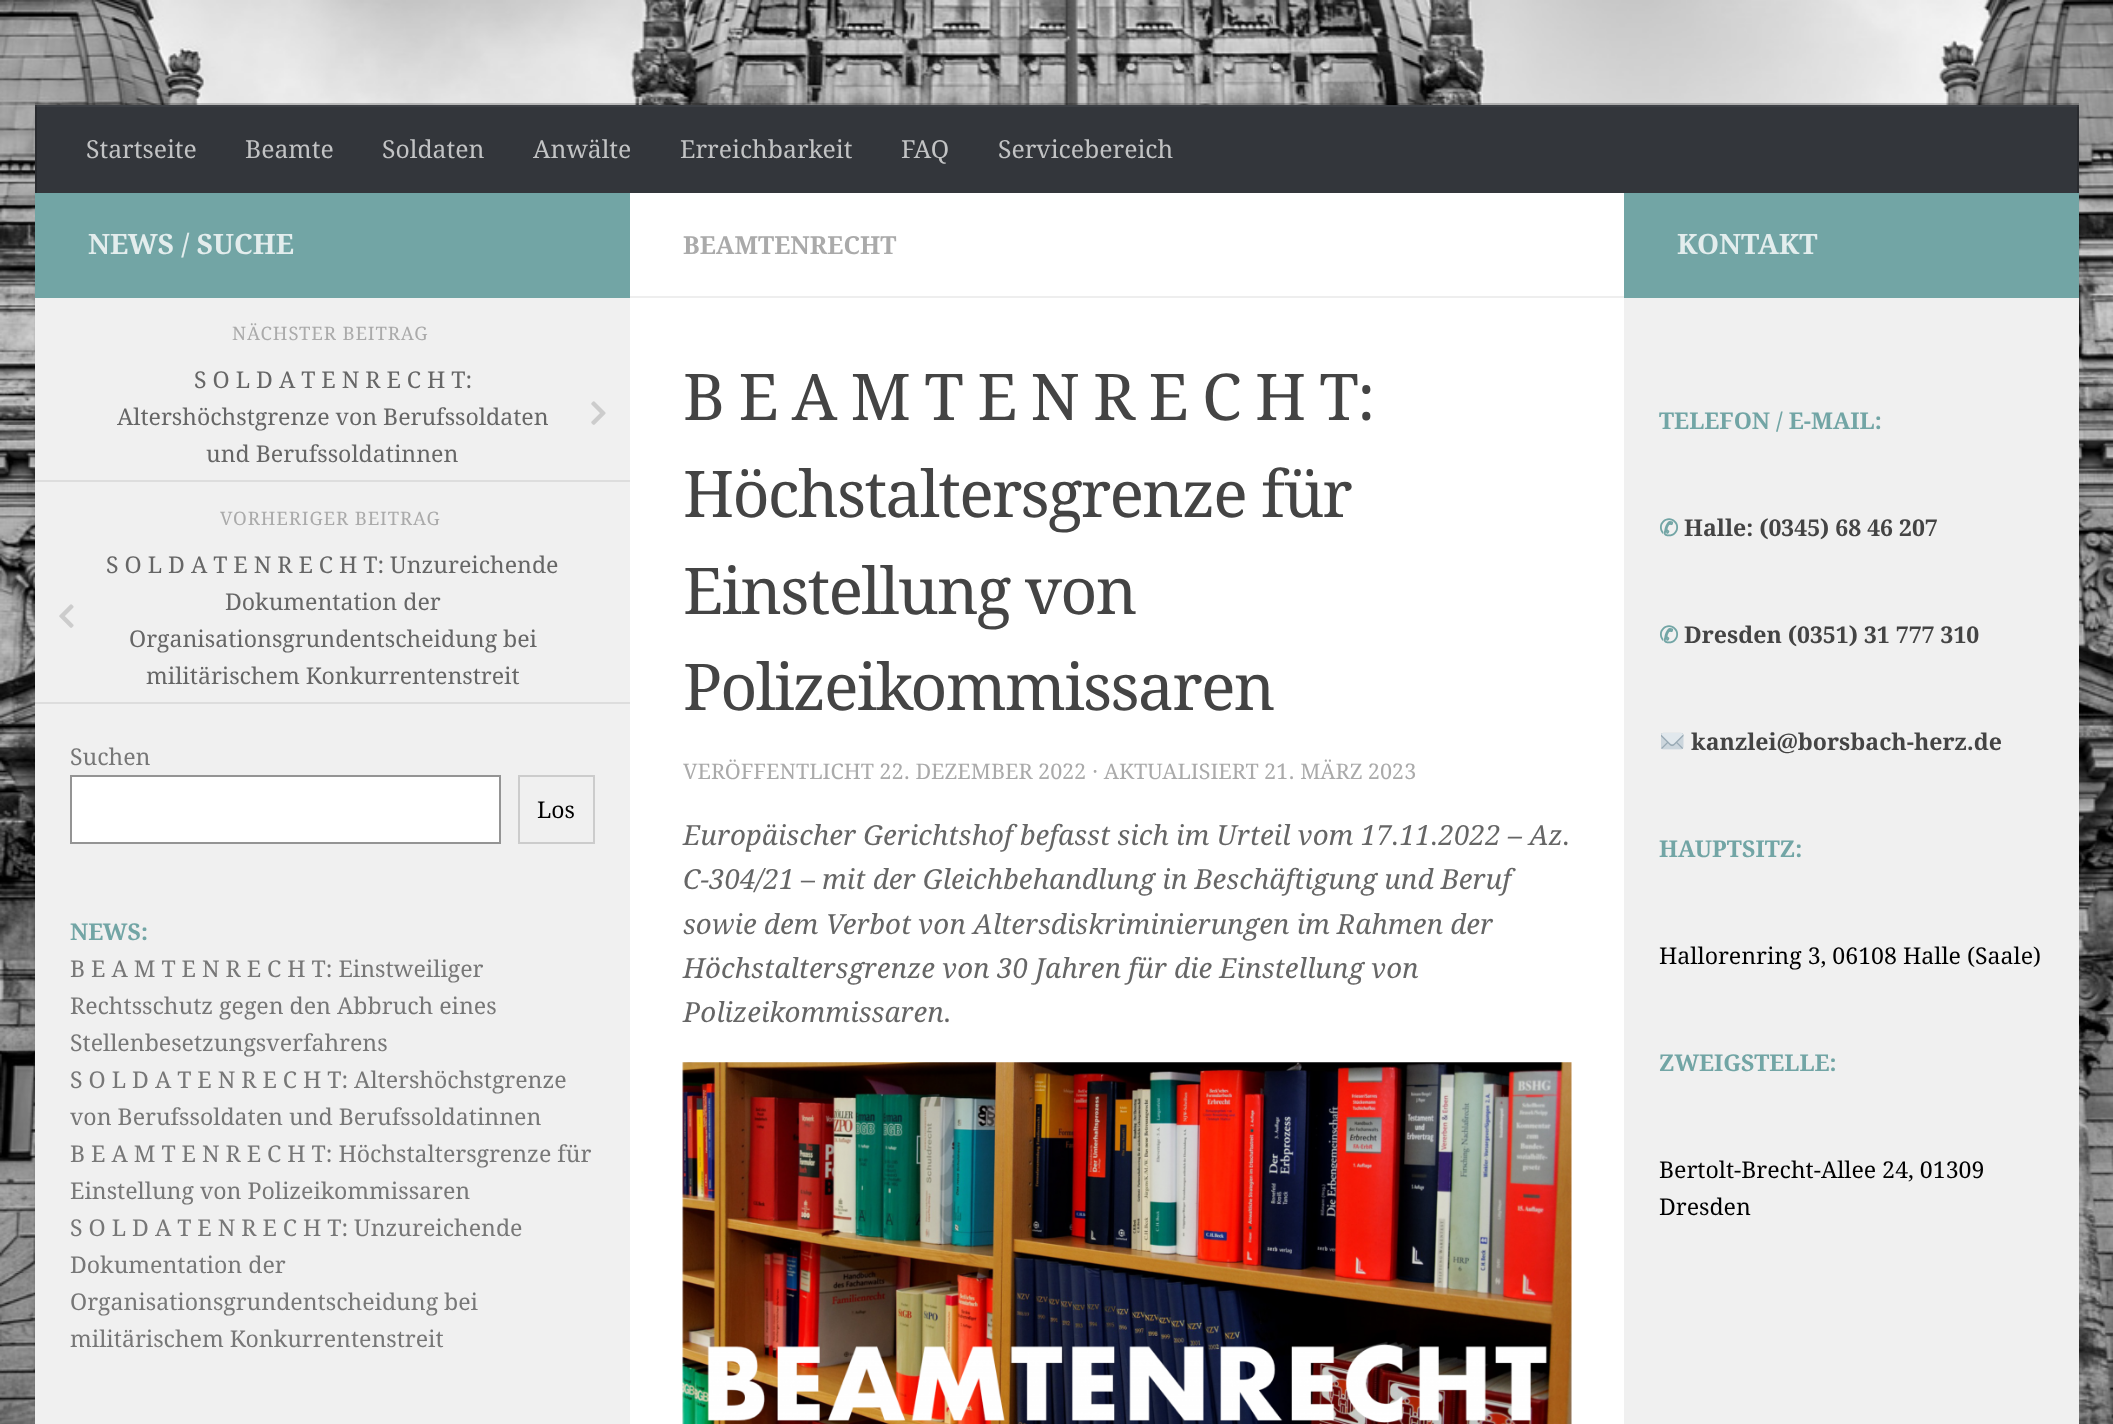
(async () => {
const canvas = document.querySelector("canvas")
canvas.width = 2113
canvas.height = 1424
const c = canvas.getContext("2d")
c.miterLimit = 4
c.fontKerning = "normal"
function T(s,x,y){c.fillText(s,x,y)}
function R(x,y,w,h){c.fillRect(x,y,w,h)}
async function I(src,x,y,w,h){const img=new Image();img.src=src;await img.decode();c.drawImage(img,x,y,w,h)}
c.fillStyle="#fff"
R(0,0,2113,1424)
await I("1.png",0,0,2113,1424)
c.fillStyle="#00000033"
R(35,103,2044,2)
c.fillStyle="#0000001a"
c.filter="blur(1px)"
c.beginPath()
c.rect(35,194,2044,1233)
c.fill()
c.filter="none"
c.fillStyle="#33363b"
R(37,105,2040,88)
c.fillStyle="#292b2f"
R(2077,105,2,88)
R(35,105,2,88)
c.fillStyle="#ffffff0d"
R(35,105,2044,2)
c.font="24.75px Droid Serif"
c.fillStyle="#c2c3c4"
T("Startseite",86,158)
T("Beamte",245,158)
T("Soldaten",382,158)
T("Anwälte",533,158)
T("Erreichbarkeit",680,158)
T("FAQ",901,158)
T("Servicebereich",998,158)
c.fillStyle="#fff"
R(630,193,994,1231)
c.fillStyle="#72a5a5"
R(35,193,595,105)
c.font="bold 28px Droid Serif"
c.fillStyle="#e3eded"
T("NEWS / SUCHE",88,254)
c.fillStyle="#f0f0f0"
R(35,298,595,1126)
c.letterSpacing="0.9px"
c.font="18.5px Droid Serif"
c.fillStyle="#aaa"
T("NÄCHSTER BEITRAG",232,340)
c.fillStyle="#ddd"
R(35,480,595,2)
c.letterSpacing="0px"
c.font="23.1px Droid Serif"
c.fillStyle="#666"
T("S O L D A T E N R E C H T:",194,388)
T("Altershöchstgrenze von Berufssoldaten",117,425)
await I("2.png",591,401,15,24)
T("und Berufssoldatinnen",206,462)
c.letterSpacing="0.9px"
c.font="18.5px Droid Serif"
c.fillStyle="#aaa"
T("VORHERIGER BEITRAG",220,525)
c.fillStyle="#ddd"
R(35,702,595,2)
c.letterSpacing="0px"
c.font="23.1px Droid Serif"
c.fillStyle="#666"
T("S O L D A T E N R E C H T: Unzureichende",106,573)
T("Dokumentation der",225,610)
await I("3.png",59,604,15,24)
T("Organisationsgrundentscheidung bei",129,647)
T("militärischem Konkurrentenstreit",146,684)
c.fillStyle="#777"
T("Suchen",70,765)
c.fillStyle="#fff"
c.beginPath()
c.rect(71,776,429,67)
c.fill()
c.strokeStyle="#949494"
c.lineWidth=2
c.stroke()
c.strokeStyle="#ccc"
c.strokeRect(519,776,75,67)
c.font="23px Droid Serif"
c.fillStyle="#000"
T("Los",537,818)
c.font="bold 23.1px Droid Serif"
c.fillStyle="#72a5a5"
T("NEWS:",70,940)
c.font="23.1px Droid Serif"
c.fillStyle="#777"
T("B E A M T E N R E C H T: Einstweiliger",70,977)
T("Rechtsschutz gegen den Abbruch eines",70,1014)
T("Stellenbesetzungsverfahrens",70,1051)
T("S O L D A T E N R E C H T: Altershöchstgrenze",70,1088)
T("von Berufssoldaten und Berufssoldatinnen",70,1125)
T("B E A M T E N R E C H T: Höchstaltersgrenze für",70,1162)
T("Einstellung von Polizeikommissaren",70,1199)
T("S O L D A T E N R E C H T: Unzureichende",70,1236)
T("Dokumentation der",70,1273)
T("Organisationsgrundentscheidung bei",70,1310)
T("militärischem Konkurrentenstreit",70,1347)
c.fillStyle="#eee"
R(630,296,994,2)
c.font="bold 24.75px Droid Serif"
c.fillStyle="#aaa"
T("BEAMTENRECHT",683,254)
c.letterSpacing="-1.75px"
c.font="64.5px Droid Serif"
c.fillStyle="#444"
T("B E A M T E N R E C H T:",683,420)
T("Höchstaltersgrenze für",683,517)
T("Einstellung von",683,614)
T("Polizeikommissaren",683,710)
c.letterSpacing="0px"
c.font="21.55px Droid Serif"
c.fillStyle="#aaa"
T("VERÖFFENTLICHT 22. DEZEMBER 2022 · AKTUALISIERT 21. MÄRZ 2023",683,779)
c.font="italic 27.75px Droid Serif"
c.fillStyle="#666"
T("Europäischer Gerichtshof befasst sich im Urteil vom 17.11.2022 – Az.",683,845)
T("C-304/21",683,889)
c.font="27.75px Droid Serif"
T("–",801,889)
c.font="italic 27.75px Droid Serif"
T("mit der Gleichbehandlung in Beschäftigung und Beruf",822,889)
T("sowie dem Verbot von Altersdiskriminierungen im Rahmen der",683,934)
T("Höchstaltersgrenze von 30 Jahren für die Einstellung von",683,978)
T("Polizeikommissaren",683,1022)
c.font="27.75px Droid Serif"
T(".",943,1022)
await I("4.png",682,1062,890,362)
c.fillStyle="#72a5a5"
R(1624,193,455,105)
c.font="bold 28px Droid Serif"
c.fillStyle="#e3eded"
T("KONTAKT",1677,254)
c.fillStyle="#f0f0f0"
R(1624,298,455,1126)
c.font="bold 23.1px Droid Serif"
c.fillStyle="#72a5a5"
T("TELEFON / E-MAIL:",1659,429)
c.font="bold 23.1px DejaVu Sans"
T("✆",1659,536)
c.font="bold 23.1px Droid Serif"
c.fillStyle="#444"
T("Halle: (0345) 68 46 207",1684,536)
c.font="bold 23.1px DejaVu Sans"
c.fillStyle="#72a5a5"
T("✆",1659,643)
c.font="bold 23.1px Droid Serif"
c.fillStyle="#444"
T("Dresden (0351) 31 777 310",1684,643)
await I("5.png",1661,732,23,18)
T("kanzlei@borsbach-herz.de",1691,750)
c.fillStyle="#72a5a5"
T("HAUPTSITZ:",1659,857)
c.font="23.1px Droid Serif"
c.fillStyle="#000"
T("Hallorenring 3, 06108 Halle (Saale)",1659,964)
c.font="bold 23.1px Droid Serif"
c.fillStyle="#72a5a5"
T("ZWEIGSTELLE:",1659,1071)
c.font="23.1px Droid Serif"
c.fillStyle="#000"
T("Bertolt-Brecht-Allee 24, 01309",1659,1178)
T("Dresden",1659,1215)
})()
